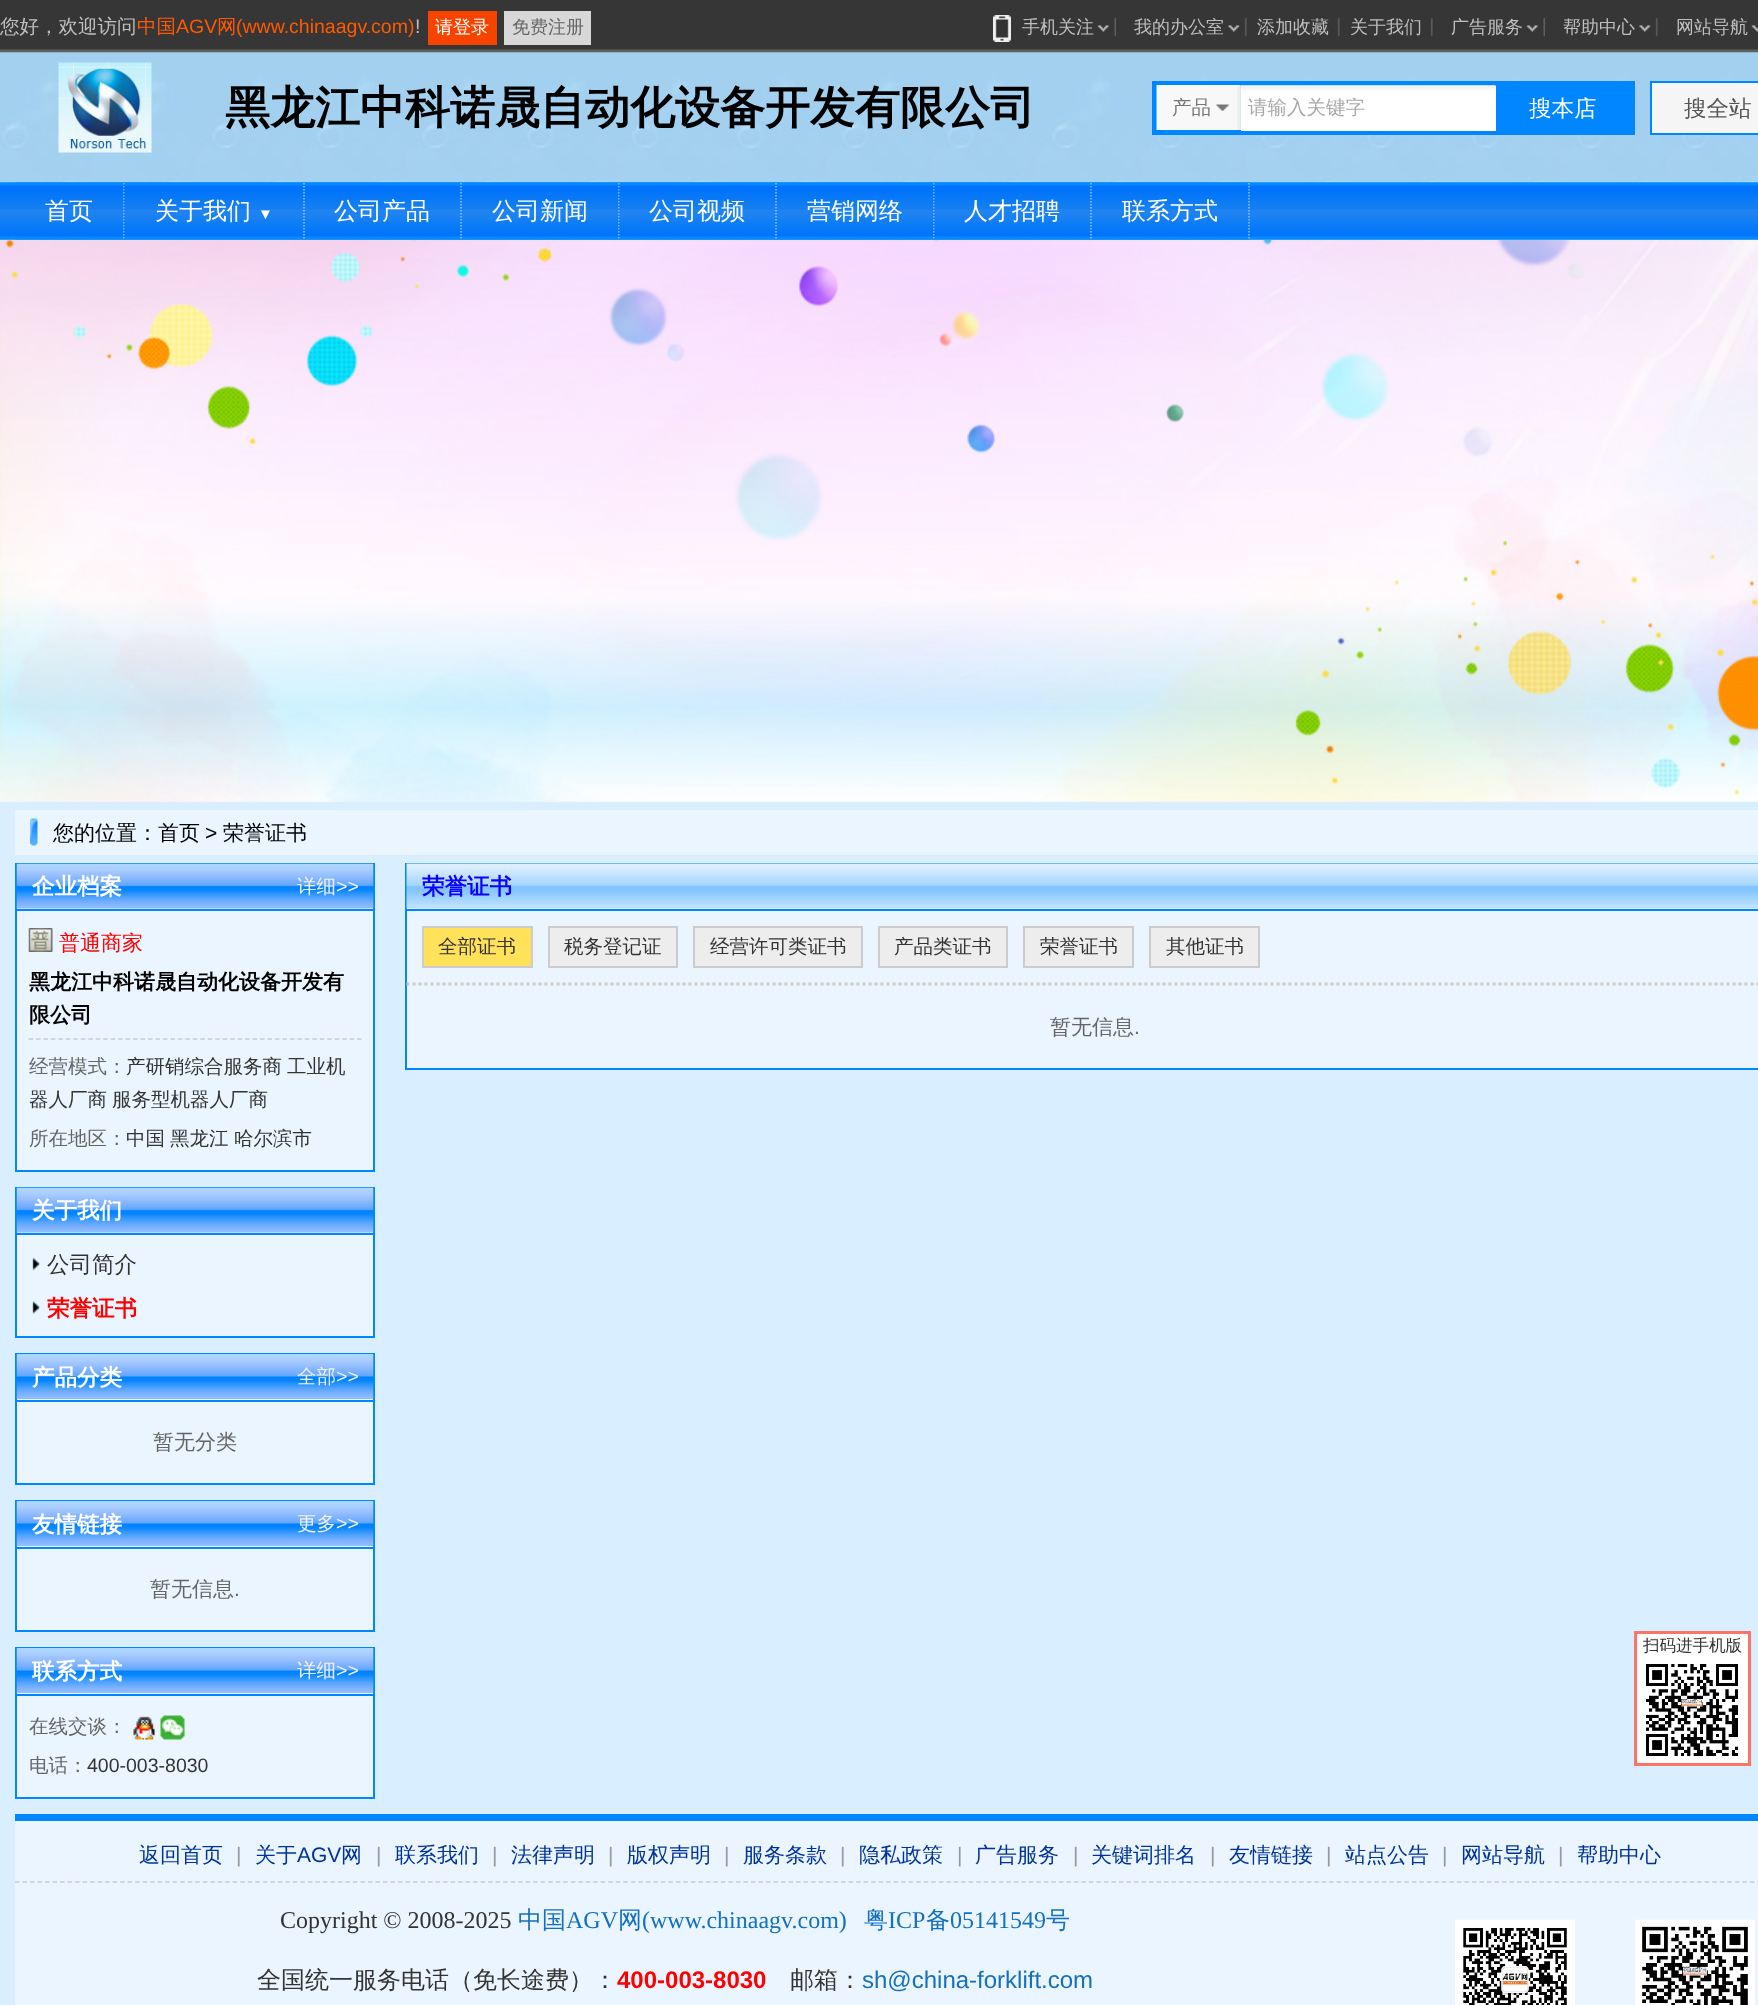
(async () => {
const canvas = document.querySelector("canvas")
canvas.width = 1758
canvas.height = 2005
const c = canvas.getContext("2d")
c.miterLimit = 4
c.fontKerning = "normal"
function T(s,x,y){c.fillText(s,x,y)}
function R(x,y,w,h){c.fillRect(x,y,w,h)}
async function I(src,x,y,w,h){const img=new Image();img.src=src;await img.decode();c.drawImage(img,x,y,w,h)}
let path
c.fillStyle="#fff"
R(0,0,1758,2005)
await I("1.png",0,52,1758,188)
await I("2.png",0,0,1758,53)
c.font="500 19.5px WenQuanYi Zen Hei"
c.fillStyle="#bfbfbf"
T("您好，欢迎访问",0,33)
c.fillStyle="#ff5a00"
T("中国",137,33)
c.font="19.5px Liberation Sans"
T("AGV",176,33)
c.font="500 19.5px WenQuanYi Zen Hei"
T("网",217,33)
c.font="19.5px Liberation Sans"
T("(www.chinaagv.com)",236,33)
c.fillStyle="#bfbfbf"
T("!",415,33)
c.fillStyle="#f64400"
R(428,11,69,34)
c.font="500 18px WenQuanYi Zen Hei"
c.fillStyle="#fff"
T("请登录",435,33)
c.fillStyle="#d8d8d8"
R(504,11,87,34)
c.fillStyle="#666"
T("免费注册",512,33)
await I("3.png",1114,17,2,20)
await I("4.png",1097,25,12,7)
await I("5.png",993,15,18,27)
c.fillStyle="#bfbfbf"
T("手机关注",1022,33)
await I("6.png",1244,18,3,19)
await I("7.png",1228,25,12,7)
T("我的办公室",1134,33)
await I("6.png",1337,18,3,19)
T("添加收藏",1257,33)
await I("6.png",1430,18,3,19)
T("关于我们",1350,33)
await I("3.png",1543,17,2,20)
await I("4.png",1526,25,12,7)
T("广告服务",1451,33)
await I("6.png",1655,18,3,19)
await I("7.png",1639,25,12,7)
T("帮助中心",1563,33)
await I("8.png",1751,25,7,7)
T("网站导航",1676,33)
await I("9.png",0,182,1758,58)
await I("10.png",58,62,94,91)
c.font="bold 45px WenQuanYi Zen Hei"
c.fillStyle="#000"
T("黑龙江中科诺晟自动化设备开发有限公司",225,123)
c.strokeStyle="#0086ff"
c.lineWidth=5
c.strokeRect(1154.5,83.5,478,49)
c.fillStyle="#fff"
R(1241,86,255,45)
await I("12.png",1240,85,256,45)
await I("11.png",1156,85,85,45)
c.font="500 19.5px WenQuanYi Zen Hei"
c.fillStyle="#777"
T("产品",1172,114)
c.fillStyle="#a9a9a9"
T("请输入关键字",1248,114)
c.fillStyle="#0086ff"
R(1496,86,134,44)
c.font="500 22.5px WenQuanYi Zen Hei"
c.fillStyle="#fff"
T("搜本店",1529,116)
c.fillStyle="#f5f5f5"
c.beginPath()
c.rect(1651,82,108,52)
c.fill()
c.lineWidth=2
c.stroke()
c.fillStyle="#555"
T("搜全站",1684,116)
await I("13.png",0,182,1758,58)
await I("14.png",15,182,110,58)
path = new Path2D("M124 183v57")
c.strokeStyle="#86c6ff"
c.lineWidth=1.5
c.setLineDash([1.5,1.5])
c.stroke(path)
c.font="500 24px WenQuanYi Zen Hei"
c.fillStyle="#fff"
T("首页",45,219)
await I("16.png",304,182,158,58)
await I("15.png",124,182,181,58)
path = new Path2D("M304 183v57")
c.stroke(path)
T("关于我们",155,219)
c.font="15px Liberation Sans"
T("▼",258,219)
path = new Path2D("M461 183v57")
c.stroke(path)
c.font="500 24px WenQuanYi Zen Hei"
T("公司产品",334,219)
await I("17.png",462,182,158,58)
path = new Path2D("M619 183v57")
c.stroke(path)
T("公司新闻",492,219)
await I("18.png",619,182,158,58)
path = new Path2D("M776 183v57")
c.stroke(path)
T("公司视频",649,219)
await I("19.png",777,182,158,58)
path = new Path2D("M934 183v57")
c.stroke(path)
T("营销网络",807,219)
await I("20.png",934,182,158,58)
path = new Path2D("M1091 183v57")
c.stroke(path)
T("人才招聘",964,219)
await I("19.png",1092,182,158,58)
path = new Path2D("M1249 183v57")
c.stroke(path)
T("联系方式",1122,219)
c.fillStyle="#d9efff"
R(0,801,1758,1013)
await I("21.png",0,240,1758,562)
c.fillStyle="#eaf5ff"
R(15,810,1743,45)
await I("22.png",30,818,8,28)
c.font="500 21px WenQuanYi Zen Hei"
c.fillStyle="#000"
T("您的位置：首页",53,840)
c.font="21px Liberation Sans"
T(">",205,840)
c.font="500 21px WenQuanYi Zen Hei"
T("荣誉证书",223,840)
c.fillStyle="#eaf5ff"
R(17,908,356,262)
c.strokeStyle="#0086ff"
c.lineWidth=2
c.setLineDash([])
c.strokeRect(16,864,358,307)
await I("23.png",16,863,358,46)
c.fillStyle="#0086ff"
R(17,909,357,2)
c.font="bold 22.5px WenQuanYi Zen Hei"
c.fillStyle="#fff"
T("企业档案",32,894)
c.font="500 19.5px WenQuanYi Zen Hei"
c.fillStyle="#f1f1f1"
T("详细",297,893)
c.font="19.5px Liberation Sans"
T(">>",336,893)
await I("24.png",28,928,25,24)
c.font="500 21px WenQuanYi Zen Hei"
c.fillStyle="#f00"
T("普通商家",59,950)
path = new Path2D("M28.5 1039h333")
c.strokeStyle="#ccc"
c.lineWidth=1.5
c.setLineDash([4.5,2.97])
c.stroke(path)
c.font="bold 21px WenQuanYi Zen Hei"
c.fillStyle="#000"
T("黑龙江中科诺晟自动化设备开发有",29,989)
T("限公司",29,1022)
c.font="500 19.5px WenQuanYi Zen Hei"
c.fillStyle="#666"
T("经营模式：",29,1073)
c.fillStyle="#333"
T("产研销综合服务商",126,1073)
T("工业机",287,1073)
T("器人厂商",29,1106)
T("服务型机器人厂商",112,1106)
c.fillStyle="#666"
T("所在地区：",29,1145)
c.fillStyle="#333"
T("中国",126,1145)
T("黑龙江",170,1145)
T("哈尔滨市",234,1145)
c.fillStyle="#eaf5ff"
R(17,1232,356,104)
c.strokeStyle="#0086ff"
c.lineWidth=2
c.setLineDash([])
c.strokeRect(16,1188,358,149)
await I("23.png",16,1187,358,46)
c.fillStyle="#0086ff"
R(17,1233,357,2)
c.font="bold 22.5px WenQuanYi Zen Hei"
c.fillStyle="#fff"
T("关于我们",32,1218)
await I("25.png",32,1257,8,14)
c.font="500 22.5px WenQuanYi Zen Hei"
c.fillStyle="#333"
T("公司简介",47,1272)
await I("26.png",32,1301,8,13)
c.font="bold 22.5px WenQuanYi Zen Hei"
c.fillStyle="#f00"
T("荣誉证书",47,1316)
c.fillStyle="#eaf5ff"
R(17,1399,356,84)
c.strokeRect(16,1354,358,130)
await I("27.png",16,1354,358,45)
c.fillStyle="#0086ff"
R(17,1400,357,2)
c.fillStyle="#fff"
T("产品分类",32,1385)
c.font="500 19.5px WenQuanYi Zen Hei"
c.fillStyle="#f1f1f1"
T("全部",297,1383)
c.font="19.5px Liberation Sans"
T(">>",336,1383)
c.font="500 21px WenQuanYi Zen Hei"
c.fillStyle="#666"
T("暂无分类",153,1449)
c.fillStyle="#eaf5ff"
R(17,1546,356,84)
c.strokeRect(16,1501,358,130)
await I("27.png",16,1501,358,45)
c.fillStyle="#0086ff"
R(17,1547,357,2)
c.font="bold 22.5px WenQuanYi Zen Hei"
c.fillStyle="#fff"
T("友情链接",32,1532)
c.font="500 19.5px WenQuanYi Zen Hei"
c.fillStyle="#f1f1f1"
T("更多",297,1530)
c.font="19.5px Liberation Sans"
T(">>",336,1530)
c.font="500 21px WenQuanYi Zen Hei"
c.fillStyle="#666"
T("暂无信息",150,1596)
c.font="21px Liberation Sans"
T(".",234,1596)
c.fillStyle="#eaf5ff"
R(17,1693,356,104)
c.strokeRect(16,1648,358,150)
await I("27.png",16,1648,358,45)
c.fillStyle="#0086ff"
R(17,1694,357,2)
c.font="bold 22.5px WenQuanYi Zen Hei"
c.fillStyle="#fff"
T("联系方式",32,1679)
c.font="500 19.5px WenQuanYi Zen Hei"
c.fillStyle="#f1f1f1"
T("详细",297,1677)
c.font="19.5px Liberation Sans"
T(">>",336,1677)
c.font="500 19.5px WenQuanYi Zen Hei"
c.fillStyle="#666"
T("在线交谈：",29,1733)
await I("28.png",133,1716,22,24)
await I("29.png",160,1715,25,25)
T("电话：",29,1772)
c.font="19.5px Liberation Sans"
c.fillStyle="#333"
T("400-003-8030",87,1772)
c.fillStyle="#eaf5ff"
R(407,908,1351,160)
c.strokeRect(406,864,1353,205)
await I("30.png",406,863,1352,46)
c.fillStyle="#0086ff"
R(407,909,1351,2)
c.font="bold 22.5px WenQuanYi Zen Hei"
c.fillStyle="#0c00ff"
T("荣誉证书",422,894)
path = new Path2D("M406.5 984h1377")
c.strokeStyle="#ccc"
c.lineWidth=3
c.setLineDash([3,3])
c.stroke(path)
c.fillStyle="#ffe259"
c.beginPath()
c.rect(423,927,109,40)
c.fill()
c.lineWidth=2
c.setLineDash([])
c.stroke()
c.font="500 19.5px WenQuanYi Zen Hei"
c.fillStyle="#333"
T("全部证书",438,953)
c.fillStyle="#ededed"
c.beginPath()
c.rect(549,927,128,40)
c.fill()
c.stroke()
c.fillStyle="#333"
T("税务登记证",564,953)
c.fillStyle="#ededed"
c.beginPath()
c.rect(694,927,168,40)
c.fill()
c.stroke()
c.fillStyle="#333"
T("经营许可类证书",710,953)
c.fillStyle="#ededed"
c.beginPath()
c.rect(879,927,128,40)
c.fill()
c.stroke()
c.fillStyle="#333"
T("产品类证书",894,953)
c.fillStyle="#ededed"
c.beginPath()
c.rect(1024,927,109,40)
c.fill()
c.stroke()
c.fillStyle="#333"
T("荣誉证书",1040,953)
c.fillStyle="#ededed"
c.beginPath()
c.rect(1150,927,109,40)
c.fill()
c.stroke()
c.fillStyle="#333"
T("其他证书",1166,953)
c.font="500 21px WenQuanYi Zen Hei"
c.fillStyle="#666"
T("暂无信息",1050,1034)
c.font="21px Liberation Sans"
T(".",1134,1034)
c.fillStyle="#fff"
c.beginPath()
c.rect(1635.5,1632.5,114,132)
c.fill()
c.strokeStyle="#ff7366"
c.lineWidth=3
c.stroke()
c.font="500 16.5px WenQuanYi Zen Hei"
c.fillStyle="#333"
T("扫码进手机版",1643,1651)
await I("31.png",1646,1664,92,92)
c.fillStyle="#d9efff"
R(0,1814,15,191)
c.fillStyle="#eaf5ff"
R(15,1821,1743,184)
c.fillStyle="#0086ff"
R(15,1814,1743,7)
path = new Path2D("M15 1882h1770")
c.strokeStyle="#ccc"
c.lineWidth=1.5
c.setLineDash([4.5,3.01])
c.stroke(path)
c.font="500 21px WenQuanYi Zen Hei"
c.fillStyle="#039"
T("返回首页",139,1862)
c.font="21px Liberation Sans"
c.fillStyle="#999"
T("|",236,1862)
c.font="500 21px WenQuanYi Zen Hei"
c.fillStyle="#039"
T("关于",255,1862)
c.font="21px Liberation Sans"
T("AGV",297,1862)
c.font="500 21px WenQuanYi Zen Hei"
T("网",341,1862)
c.font="21px Liberation Sans"
c.fillStyle="#999"
T("|",376,1862)
c.font="500 21px WenQuanYi Zen Hei"
c.fillStyle="#039"
T("联系我们",395,1862)
c.font="21px Liberation Sans"
c.fillStyle="#999"
T("|",492,1862)
c.font="500 21px WenQuanYi Zen Hei"
c.fillStyle="#039"
T("法律声明",511,1862)
c.font="21px Liberation Sans"
c.fillStyle="#999"
T("|",608,1862)
c.font="500 21px WenQuanYi Zen Hei"
c.fillStyle="#039"
T("版权声明",627,1862)
c.font="21px Liberation Sans"
c.fillStyle="#999"
T("|",724,1862)
c.font="500 21px WenQuanYi Zen Hei"
c.fillStyle="#039"
T("服务条款",743,1862)
c.font="21px Liberation Sans"
c.fillStyle="#999"
T("|",840,1862)
c.font="500 21px WenQuanYi Zen Hei"
c.fillStyle="#039"
T("隐私政策",859,1862)
c.font="21px Liberation Sans"
c.fillStyle="#999"
T("|",957,1862)
c.font="500 21px WenQuanYi Zen Hei"
c.fillStyle="#039"
T("广告服务",975,1862)
c.font="21px Liberation Sans"
c.fillStyle="#999"
T("|",1073,1862)
c.font="500 21px WenQuanYi Zen Hei"
c.fillStyle="#039"
T("关键词排名",1091,1862)
c.font="21px Liberation Sans"
c.fillStyle="#999"
T("|",1210,1862)
c.font="500 21px WenQuanYi Zen Hei"
c.fillStyle="#039"
T("友情链接",1229,1862)
c.font="21px Liberation Sans"
c.fillStyle="#999"
T("|",1326,1862)
c.font="500 21px WenQuanYi Zen Hei"
c.fillStyle="#039"
T("站点公告",1345,1862)
c.font="21px Liberation Sans"
c.fillStyle="#999"
T("|",1442,1862)
c.font="500 21px WenQuanYi Zen Hei"
c.fillStyle="#039"
T("网站导航",1461,1862)
c.font="21px Liberation Sans"
c.fillStyle="#999"
T("|",1558,1862)
c.font="500 21px WenQuanYi Zen Hei"
c.fillStyle="#039"
T("帮助中心",1577,1862)
c.font="24px Liberation Serif"
c.fillStyle="#333"
T("Copyright © 2008-2025",280,1928)
c.font="500 24px WenQuanYi Zen Hei"
c.fillStyle="#1570bd"
T("中国",518,1928)
c.font="24px Liberation Serif"
T("AGV",566,1928)
c.font="500 24px WenQuanYi Zen Hei"
T("网",618,1928)
c.font="24px Liberation Serif"
T("(www.chinaagv.com)",642,1928)
c.font="500 24px WenQuanYi Zen Hei"
T("粤",864,1928)
c.font="24px Liberation Serif"
T("ICP",888,1928)
c.font="500 24px WenQuanYi Zen Hei"
T("备",926,1928)
c.font="24px Liberation Serif"
T("05141549",950,1928)
c.font="500 24px WenQuanYi Zen Hei"
T("号",1046,1928)
c.fillStyle="#333"
T("全国统一服务电话（免长途费）：",257,1988)
c.font="bold 24px Liberation Sans"
c.fillStyle="#f00"
T("400-003-8030",617,1988)
c.font="500 24px WenQuanYi Zen Hei"
c.fillStyle="#333"
T("邮箱：",790,1988)
c.font="24px Liberation Sans"
c.fillStyle="#1570bd"
T("sh@china-forklift.com",862,1988)
await I("32.png",1455,1919,120,86)
await I("33.png",1635,1919,120,86)
})()
